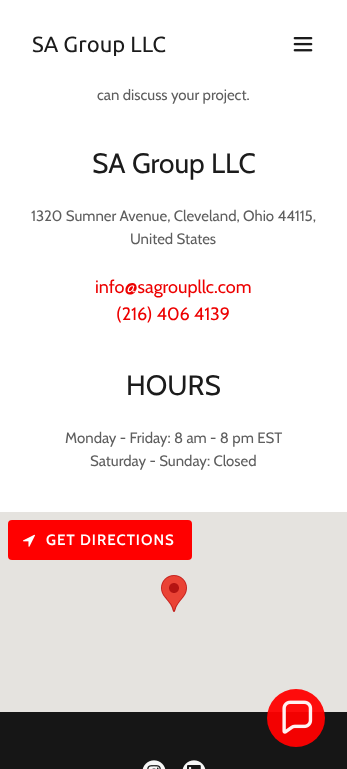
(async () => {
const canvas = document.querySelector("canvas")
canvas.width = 347
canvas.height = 769
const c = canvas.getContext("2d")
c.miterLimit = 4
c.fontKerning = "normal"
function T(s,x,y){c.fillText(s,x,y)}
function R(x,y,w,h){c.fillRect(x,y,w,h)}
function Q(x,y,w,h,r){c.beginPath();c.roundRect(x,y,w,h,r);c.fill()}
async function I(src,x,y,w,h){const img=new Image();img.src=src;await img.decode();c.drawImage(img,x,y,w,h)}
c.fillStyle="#161616"
R(0,0,347,769)
c.fillStyle="#fff"
R(0,0,347,512)
c.font="15px Cabin"
c.fillStyle="#5e5e5e"
T("can discuss your project.",97,100)
c.fillStyle="#ffffffe6"
R(129,88,2,1)
c.font="22px Ubuntu"
c.fillStyle="#1b1b1b"
T("SA Group LLC",32,52)
await I("1.png",293,37,20,15)
c.font="28px Cabin"
T("SA Group LLC",92,173)
c.font="15px Cabin"
c.fillStyle="#5e5e5e"
T("1320 Sumner Avenue, Cleveland, Ohio 44115,",31,221)
T("United States",130,244)
c.font="18px Cabin"
c.fillStyle="#ed0000"
T("info@sagroupllc.com",95,293)
T("(216) 406 4139",116,320)
c.font="28px Cabin"
c.fillStyle="#1b1b1b"
T("HOURS",126,395)
c.font="15px Cabin"
c.fillStyle="#5e5e5e"
T("Monday - Friday: 8 am - 8 pm EST",65,443)
T("Saturday - Sunday: Closed",90,466)
c.fillStyle="#e5e3df"
R(0,512,347,200)
await I("2.png",161,575,26,37)
c.fillStyle="#f00"
Q(8,520,184,40,4)
await I("3.png",23,534,12,13)
c.letterSpacing="1px"
c.font="600 15px Cabin"
c.fillStyle="#fff"
T("GET DIRECTIONS",46,545)
await I("4.png",142,760,24,9)
await I("5.png",182,760,24,9)
c.fillStyle="#ff0000f2"
c.beginPath()
c.arc(296,718,29,0,7)
c.fill()
await I("6.png",282,700,31,34)
})()
